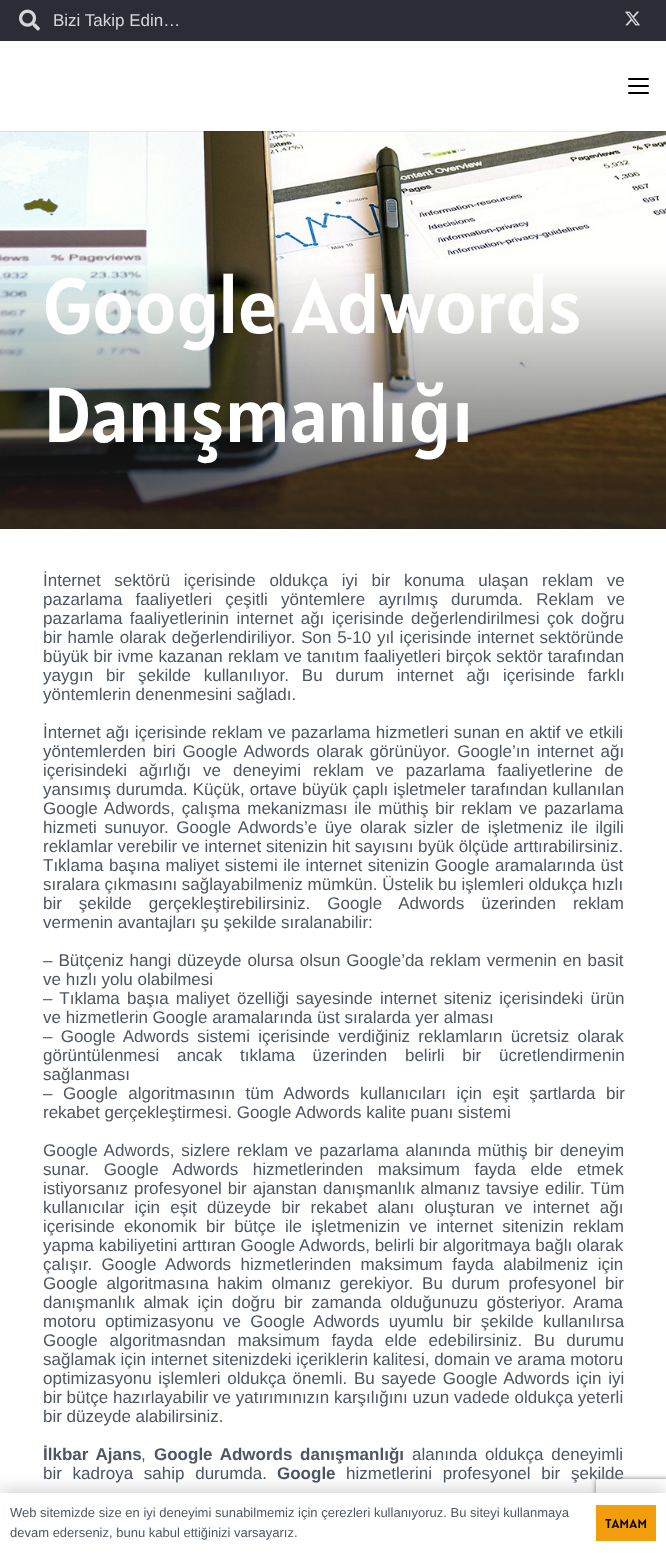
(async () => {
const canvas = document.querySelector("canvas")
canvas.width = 666
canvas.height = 1553
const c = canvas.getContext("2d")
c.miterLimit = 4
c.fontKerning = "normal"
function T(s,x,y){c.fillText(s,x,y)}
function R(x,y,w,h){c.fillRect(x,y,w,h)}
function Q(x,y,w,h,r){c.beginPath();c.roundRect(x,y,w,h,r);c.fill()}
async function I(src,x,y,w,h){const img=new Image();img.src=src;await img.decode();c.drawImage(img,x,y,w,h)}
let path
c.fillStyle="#fff"
R(0,0,666,1553)
c.fillStyle="#2b2c36"
R(0,0,666,41)
await I("1.png",19,9,21,22)
c.font="17px Liberation Sans"
c.fillStyle="#d3d8db"
T("Bizi Takip Edin…",53,26)
await I("2.png",625,11,15,15)
await I("3.png",0,131,666,398)
c.fillStyle="#00000014"
R(0,131,666,1)
c.fillStyle="#000"
Q(628,85,21,2,1)
Q(628,78,21,2,1)
Q(628,92,21,2,1)
c.font="78px Alatsi"
c.fillStyle="#fff"
T("Google Adwords",43,333)
T("Danışmanlığı",43,442)
c.wordSpacing="9px"
c.font="17px Liberation Sans"
c.fillStyle="#4e5663"
T("İnternet sektörü içerisinde oldukça iyi bir konuma ulaşan reklam ve",43,586)
c.wordSpacing="8.5px"
T("pazarlama faaliyetleri çeşitli yöntemlere ayrılmış durumda. Reklam ve",43,605)
c.wordSpacing="2.75px"
T("pazarlama faaliyetlerinin internet ağı içerisinde değerlendirilmesi çok doğru",43,624)
c.wordSpacing="1px"
T("bir hamle olarak değerlendiriliyor. Son 5-10 yıl içerisinde internet sektöründe",43,643)
c.wordSpacing="0.4px"
T("büyük bir ivme kazanan reklam ve tanıtım faaliyetleri birçok sektör tarafından",43,662)
c.wordSpacing="8.25px"
T("yaygın bir şekilde kullanılıyor. Bu durum internet ağı içerisinde farklı",43,681)
c.wordSpacing="0px"
T("yöntemlerin denenmesini sağladı.",43,700)
c.wordSpacing="0.5px"
T("İnternet ağı içerisinde reklam ve pazarlama hizmetleri sunan en aktif ve etkili",43,738)
c.wordSpacing="2.25px"
T("yöntemlerden biri Google Adwords olarak görünüyor. Google’ın internet ağı",43,757)
c.wordSpacing="7.25px"
T("içerisindeki ağırlığı ve deneyimi reklam ve pazarlama faaliyetlerine de",43,776)
c.wordSpacing="0.25px"
T("yansımış durumda. Küçük, ortave büyük çaplı işletmeler tarafından kullanılan",43,795)
c.wordSpacing="2.25px"
T("Google Adwords, çalışma mekanizması ile müthiş bir reklam ve pazarlama",43,814)
c.wordSpacing="2.9px"
T("hizmeti sunuyor. Google Adwords’e üye olarak sizler de işletmeniz ile ilgili",43,833)
c.wordSpacing="0px"
T("reklamlar verebilir ve internet sitenizin hit sayısını byük ölçüde arttırabilirsiniz.",43,852)
c.wordSpacing="0.75px"
T("Tıklama başına maliyet sistemi ile internet sitenizin Google aramalarında üst",43,871)
c.wordSpacing="0px"
T("sıralara çıkmasını sağlayabilmeniz mümkün. Üstelik bu işlemleri oldukça hızlı",43,890)
c.wordSpacing="12.25px"
T("bir şekilde gerçekleştirebilirsiniz. Google Adwords üzerinden reklam",43,909)
c.wordSpacing="0px"
T("vermenin avantajları şu şekilde sıralanabilir:",43,928)
c.wordSpacing="1.25px"
T("– Bütçeniz hangi düzeyde olursa olsun Google’da reklam vermenin en basit",43,966)
c.wordSpacing="0px"
T("ve hızlı yolu olabilmesi",43,985)
c.wordSpacing="2.5px"
T("– Tıklama başıa maliyet özelliği sayesinde internet siteniz içerisindeki ürün",43,1004)
c.wordSpacing="0px"
T("ve hizmetlerin Google aramalarında üst sıralarda yer alması",43,1023)
c.wordSpacing="3.5px"
T("– Google Adwords sistemi içerisinde verdiğiniz reklamların ücretsiz olarak",43,1042)
c.wordSpacing="13px"
T("görüntülenmesi ancak tıklama üzerinden belirli bir ücretlendirmenin",43,1061)
c.wordSpacing="0px"
T("sağlanması",43,1080)
c.wordSpacing="5.75px"
T("– Google algoritmasının tüm Adwords kullanıcıları için eşit şartlarda bir",43,1099)
c.wordSpacing="0px"
T("rekabet gerçekleştirmesi. Google Adwords kalite puanı sistemi",43,1118)
c.wordSpacing="2px"
T("Google Adwords, sizlere reklam ve pazarlama alanında müthiş bir deneyim",43,1156)
c.wordSpacing="9.75px"
T("sunar. Google Adwords hizmetlerinden maksimum fayda elde etmek",43,1175)
c.wordSpacing="1.25px"
T("istiyorsanız profesyonel bir ajanstan danışmanlık almanız tavsiye edilir. Tüm",43,1194)
c.wordSpacing="5.5px"
T("kullanıcılar için eşit düzeyde bir rekabet alanı oluşturan ve internet ağı",43,1213)
c.wordSpacing="4.5px"
T("içerisinde ekonomik bir bütçe ile işletmenizin ve internet sitenizin reklam",43,1232)
c.wordSpacing="0px"
T("yapma kabiliyetini arttıran Google Adwords, belirli bir algoritmaya bağlı olarak",43,1251)
c.wordSpacing="4.75px"
T("çalışır. Google Adwords hizmetlerinden maksimum fayda alabilmeniz için",43,1270)
c.wordSpacing="4px"
T("Google algoritmasına hakim olmanız gerekiyor. Bu durum profesyonel bir",43,1289)
T("danışmanlık almak için doğru bir zamanda olduğunuzu gösteriyor. Arama",43,1308)
c.wordSpacing="4.5px"
T("motoru optimizasyonu ve Google Adwords uyumlu bir şekilde kullanılırsa",43,1327)
c.wordSpacing="7px"
T("Google algoritmasndan maksimum fayda elde edebilirsiniz. Bu durumu",43,1346)
c.wordSpacing="0px"
T("sağlamak için internet sitenizdeki içeriklerin kalitesi, domain ve arama motoru",43,1365)
c.wordSpacing="1.9px"
T("optimizasyonu işlemleri oldukça önemli. Bu sayede Google Adwords için iyi",43,1384)
c.wordSpacing="0px"
T("bir bütçe hazırlayabilir ve yatırımınızın karşılığını uzun vadede oldukça yeterli",43,1403)
T("bir düzeyde alabilirsiniz.",43,1422)
c.wordSpacing="3px"
c.font="bold 17px Liberation Sans"
T("İlkbar Ajans",43,1460)
c.wordSpacing="0px"
c.font="17px Liberation Sans"
T(",",141,1460)
c.wordSpacing="3px"
c.font="bold 17px Liberation Sans"
T("Google Adwords danışmanlığı",154,1460)
c.font="17px Liberation Sans"
T("alanında oldukça deneyimli",412,1460)
c.wordSpacing="6px"
T("bir kadroya sahip durumda.",43,1479)
c.wordSpacing="0px"
c.font="bold 17px Liberation Sans"
T("Google",277,1479)
c.wordSpacing="6px"
c.font="17px Liberation Sans"
T("hizmetlerini profesyonel bir şekilde",346,1479)
c.save()
path = new Path2D("M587 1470h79v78h-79zm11 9h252c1 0 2 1 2 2v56c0 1-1 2-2 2h-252c-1 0-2-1-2-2v-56c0-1 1-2 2-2z")
c.clip(path,"evenodd")
c.fillStyle="#808080"
c.filter="blur(2.5px)"
c.beginPath()
c.roundRect(596,1479,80,60,2)
c.fill()
c.filter="none"
c.restore()
c.fillStyle="#00000026"
c.filter="blur(7.5px)"
c.beginPath()
c.rect(0,1488,666,60)
c.fill()
c.filter="none"
c.fillStyle="#fff"
R(0,1493,666,60)
c.wordSpacing="0px"
c.font="13px Liberation Sans"
c.fillStyle="#4e5663"
T("Web sitemizde size en iyi deneyimi sunabilmemiz için çerezleri kullanıyoruz. Bu siteyi kullanmaya",10,1517)
T("devam ederseniz, bunu kabul ettiğinizi varsayarız.",10,1537)
c.fillStyle="#f29d0b"
R(596,1505,60,36)
c.letterSpacing="0.5px"
c.font="13px Alatsi"
c.fillStyle="#000"
T("TAMAM",605,1528)
})()
